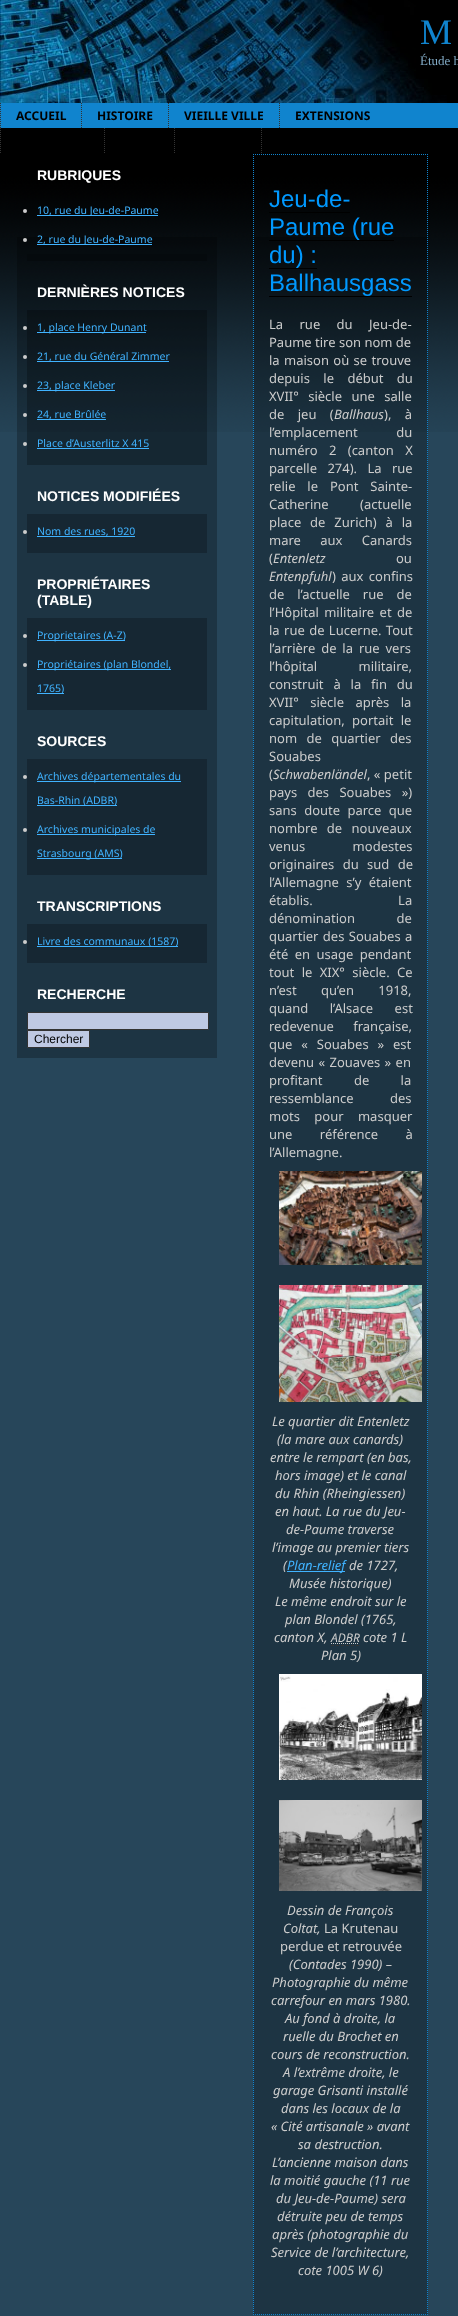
(async () => {
const canvas = document.querySelector("canvas")
canvas.width = 458
canvas.height = 2316
const c = canvas.getContext("2d")
c.miterLimit = 4
c.fontKerning = "normal"
function T(s,x,y){c.fillText(s,x,y)}
function R(x,y,w,h){c.fillRect(x,y,w,h)}
async function I(src,x,y,w,h){const img=new Image();img.src=src;await img.decode();c.drawImage(img,x,y,w,h)}
let path
c.fillStyle="#000"
R(0,0,458,2316)
await I("1.png",0,0,447,103)
c.font="36px Liberation Serif"
c.fillStyle="#1084ce"
T("M",420,44)
c.font="13px Liberation Serif"
c.fillStyle="#82abc6"
T("Étude h",420,65)
c.fillStyle="#1084ce"
R(0,103,458,25)
path = new Path2D("M.5 103v25")
c.strokeStyle="#333"
c.setLineDash([1,1])
c.stroke(path)
c.font="bold 12px Noto Sans"
c.fillStyle="#000"
T("ACCUEIL",16,120)
path = new Path2D("M81.5 103v25")
c.stroke(path)
T("HISTOIRE",97,120)
path = new Path2D("M168.5 103v25")
c.stroke(path)
T("VIEILLE VILLE",184,120)
path = new Path2D("M279.5 103v25")
c.stroke(path)
T("EXTENSIONS",295,120)
await I("2.png",0,128,458,304)
path = new Path2D("M.5 128v25")
c.stroke(path)
path = new Path2D("M104.5 128v25")
c.stroke(path)
path = new Path2D("M174.5 128v25")
c.stroke(path)
path = new Path2D("M261.5 128v25")
c.stroke(path)
c.fillStyle="#27465a"
R(0,432,458,1884)
c.fillStyle="#00000040"
R(17,237,200,821)
c.font="bold 14px Liberation Sans"
c.fillStyle="#fff"
T("RUBRIQUES",37,180)
c.fillStyle="#050a0d"
R(27,254,180,7)
c.fillStyle="#ccc"
c.beginPath()
c.arc(25,211,2,0,7)
c.fill()
c.fillStyle="#40b3ff"
R(37,215,121,1)
c.font="10.5px Noto Sans"
T("10, rue du Jeu-de-Paume",37,214)
c.fillStyle="#ccc"
c.beginPath()
c.arc(25,240,2,0,7)
c.fill()
c.fillStyle="#40b3ff"
R(37,244,115,1)
T("2, rue du Jeu-de-Paume",37,243)
c.font="bold 14px Liberation Sans"
c.fillStyle="#fff"
T("DERNIÈRES NOTICES",37,297)
c.fillStyle="#00000040"
R(27,310,180,155)
c.fillStyle="#ccc"
c.beginPath()
c.arc(25,328,2,0,7)
c.fill()
c.fillStyle="#40b3ff"
R(37,332,109,1)
c.font="10.5px Noto Sans"
T("1, place Henry Dunant",37,331)
c.fillStyle="#ccc"
c.beginPath()
c.arc(25,357,2,0,7)
c.fill()
c.fillStyle="#40b3ff"
R(37,361,132,1)
T("21, rue du Général Zimmer",37,360)
c.fillStyle="#ccc"
c.beginPath()
c.arc(25,386,2,0,7)
c.fill()
c.fillStyle="#40b3ff"
R(37,390,78,1)
T("23, place Kleber",37,389)
c.fillStyle="#ccc"
c.beginPath()
c.arc(25,415,2,0,7)
c.fill()
c.fillStyle="#40b3ff"
R(37,419,69,1)
T("24, rue Brûlée",37,418)
c.fillStyle="#ccc"
c.beginPath()
c.arc(25,444,2,0,7)
c.fill()
c.fillStyle="#40b3ff"
T("Place d’Austerlitz X 415",37,447)
R(37,448,112,1)
c.font="bold 14px Liberation Sans"
c.fillStyle="#fff"
T("NOTICES MODIFIÉES",37,501)
c.fillStyle="#162733"
R(27,514,180,39)
c.fillStyle="#ccc"
c.beginPath()
c.arc(25,532,2,0,7)
c.fill()
c.fillStyle="#40b3ff"
R(37,536,98,1)
c.font="10.5px Noto Sans"
T("Nom des rues, 1920",37,535)
c.font="bold 14px Liberation Sans"
c.fillStyle="#fff"
T("PROPRIÉTAIRES",37,589)
T("(TABLE)",37,605)
c.fillStyle="#162733"
R(27,618,180,92)
c.fillStyle="#ccc"
c.beginPath()
c.arc(25,636,2,0,7)
c.fill()
c.fillStyle="#40b3ff"
R(37,640,88,1)
c.font="10.5px Noto Sans"
T("Proprietaires (A-Z)",37,639)
c.fillStyle="#ccc"
c.beginPath()
c.arc(25,665,2,0,7)
c.fill()
c.fillStyle="#40b3ff"
R(37,669,134,1)
T("Propriétaires (plan Blondel,",37,668)
R(37,693,27,1)
T("1765)",37,692)
c.font="bold 14px Liberation Sans"
c.fillStyle="#fff"
T("SOURCES",37,746)
c.fillStyle="#162733"
R(27,759,180,116)
c.fillStyle="#ccc"
c.beginPath()
c.arc(25,777,2,0,7)
c.fill()
c.fillStyle="#40b3ff"
R(37,781,144,1)
c.font="10.5px Noto Sans"
T("Archives départementales du",37,780)
R(37,805,80,1)
T("Bas-Rhin (ADBR)",37,804)
c.fillStyle="#ccc"
c.beginPath()
c.arc(25,830,2,0,7)
c.fill()
c.fillStyle="#40b3ff"
R(37,834,118,1)
T("Archives municipales de",37,833)
R(37,858,85,1)
T("Strasbourg (AMS)",37,857)
c.font="bold 14px Liberation Sans"
c.fillStyle="#fff"
T("TRANSCRIPTIONS",37,911)
c.fillStyle="#162733"
R(27,924,180,39)
c.fillStyle="#ccc"
c.beginPath()
c.arc(25,942,2,0,7)
c.fill()
c.fillStyle="#40b3ff"
R(37,946,141,1)
c.font="10.5px Noto Sans"
T("Livre des communaux (1587)",37,945)
c.font="bold 14px Liberation Sans"
c.fillStyle="#fff"
T("RECHERCHE",37,999)
c.fillStyle="#bfc9e3"
c.beginPath()
c.rect(27.5,1012.5,181,17)
c.fill()
c.setLineDash([])
c.stroke()
c.beginPath()
c.rect(27.5,1030.5,62,17)
c.fill()
c.stroke()
c.font="12px Liberation Sans"
c.fillStyle="#000"
T("Chercher",34,1043)
c.fillStyle="#00000040"
R(253,237,175,2078)
path = new Path2D("M253 154.5h175")
c.strokeStyle="#1084ce"
c.setLineDash([1,1])
c.stroke(path)
path = new Path2D("M427.5 154v2161")
c.stroke(path)
path = new Path2D("M253 2314.5h175")
c.stroke(path)
path = new Path2D("M253.5 154v2161")
c.stroke(path)
c.font="24px Liberation Sans"
c.fillStyle="#09f"
T("Jeu-de-",269,207)
c.fillStyle="#000"
R(269,212,81,1)
c.fillStyle="#09f"
T("Paume (rue",269,235)
c.fillStyle="#000"
R(269,240,125,1)
c.fillStyle="#09f"
T("du) :",269,263)
c.fillStyle="#000"
R(269,268,48,1)
c.fillStyle="#09f"
T("Ballhausgass",269,291)
c.fillStyle="#000"
R(269,296,143,1)
c.wordSpacing="13px"
c.font="13px Noto Sans"
c.fillStyle="#ccc"
T("La rue du Jeu-de-",269,329)
c.wordSpacing="0px"
T("Paume tire son nom de",269,347)
c.wordSpacing="1px"
T("la maison où se trouve",269,365)
c.wordSpacing="10px"
T("depuis le début du",269,383)
c.wordSpacing="6px"
T("XVII° siècle une salle",269,401)
c.wordSpacing="10px"
T("de jeu (",269,419)
c.wordSpacing="0px"
c.font="italic 13px Noto Sans"
T("Ballhaus",334,419)
c.wordSpacing="10px"
c.font="13px Noto Sans"
T("), à",384,419)
c.wordSpacing="35px"
T("l’emplacement du",269,437)
c.wordSpacing="8px"
T("numéro 2 (canton X",269,455)
c.wordSpacing="7px"
T("parcelle 274). La rue",269,473)
c.wordSpacing="8.5px"
T("relie le Pont Sainte-",269,491)
c.wordSpacing="28px"
T("Catherine (actuelle",269,509)
c.wordSpacing="5.5px"
T("place de Zurich) à la",269,527)
c.wordSpacing="16px"
T("mare aux Canards",269,545)
c.wordSpacing="0px"
T("(",269,563)
c.font="italic 13px Noto Sans"
T("Entenletz",273,563)
c.font="13px Noto Sans"
T("ou",396,563)
c.font="italic 13px Noto Sans"
T("Entenpfuhl",269,581)
c.wordSpacing="2px"
c.font="13px Noto Sans"
T(") aux confins",332,581)
c.wordSpacing="9.5px"
T("de l’actuelle rue de",269,599)
c.wordSpacing="2px"
T("l’Hôpital militaire et de",269,617)
c.wordSpacing="1px"
T("la rue de Lucerne. Tout",269,635)
c.wordSpacing="2.5px"
T("l’arrière de la rue vers",269,653)
c.wordSpacing="38px"
T("l’hôpital militaire,",269,671)
c.wordSpacing="6.5px"
T("construit à la fin du",269,689)
c.wordSpacing="8px"
T("XVII° siècle après la",269,707)
c.wordSpacing="4px"
T("capitulation, portait le",269,725)
c.wordSpacing="6px"
T("nom de quartier des",269,743)
c.wordSpacing="0px"
T("Souabes",269,761)
T("(",269,779)
c.font="italic 13px Noto Sans"
T("Schwabenländel",273,779)
c.font="13px Noto Sans"
T(", « petit",367,779)
c.wordSpacing="7px"
T("pays des Souabes »)",269,797)
c.wordSpacing="4px"
T("sans doute parce que",269,815)
c.wordSpacing="6px"
T("nombre de nouveaux",269,833)
c.wordSpacing="44px"
T("venus modestes",269,851)
c.wordSpacing="5px"
T("originaires du sud de",269,869)
c.wordSpacing="4px"
T("l’Allemagne s’y étaient",269,887)
c.wordSpacing="82px"
T("établis. La",269,905)
c.wordSpacing="38px"
T("dénomination de",269,923)
c.wordSpacing="1px"
T("quartier des Souabes a",269,941)
c.wordSpacing="3px"
T("été en usage pendant",269,959)
c.wordSpacing="4px"
T("tout le XIX° siècle. Ce",269,977)
c.wordSpacing="21px"
T("n’est qu’en 1918,",269,995)
c.wordSpacing="18px"
T("quand l’Alsace est",269,1013)
c.wordSpacing="16px"
T("redevenue française,",269,1031)
c.wordSpacing="5.5px"
T("que « Souabes » est",269,1049)
c.wordSpacing="1px"
T("devenu « Zouaves » en",269,1067)
c.wordSpacing="28px"
T("profitant de la",269,1085)
c.wordSpacing="33px"
T("ressemblance des",269,1103)
c.wordSpacing="11px"
T("mots pour masquer",269,1121)
c.wordSpacing="24px"
T("une référence à",269,1139)
c.wordSpacing="0px"
T("l’Allemagne.",269,1157)
await I("3.png",279,1171,143,94)
await I("4.png",279,1285,143,117)
c.font="italic 13px Noto Sans"
T("Le quartier dit Entenletz",272,1426)
T("(la mare aux canards)",277,1444)
T("entre le rempart (en bas,",270,1462)
T("hors image) et le canal",275,1480)
T("du Rhin (Rheingiessen)",275,1498)
T("en haut. La rue du Jeu-",275,1516)
T("de-Paume traverse",286,1534)
T("l’image au premier tiers",272,1552)
T("(",283,1570)
c.fillStyle="#40b3ff"
R(287,1571,58,1)
T("Plan-relief",287,1570)
c.fillStyle="#ccc"
T("de 1727,",349,1570)
T("Musée historique)",289,1588)
T("Le même endroit sur le",275,1606)
T("plan Blondel (1765,",285,1624)
T("canton X,",274,1642)
c.font="italic 12px Noto Sans"
T("ADBR",331,1642)
path = new Path2D("M331 1645.5h28")
c.strokeStyle="#333"
c.setLineDash([3,2])
c.stroke(path)
path = new Path2D("M331 1643.5h28")
c.strokeStyle="#ccc"
c.setLineDash([1,1])
c.stroke(path)
c.font="italic 13px Noto Sans"
T("cote 1 L",363,1642)
T("Plan 5)",321,1660)
await I("5.png",279,1674,143,106)
await I("6.png",279,1800,143,91)
T("Dessin de François",287,1915)
T("Coltat,",283,1933)
c.font="13px Noto Sans"
T("La Krutenau",324,1933)
T("perdue et retrouvée",280,1951)
c.font="italic 13px Noto Sans"
T("(Contades 1990) –",289,1969)
T("Photographie du même",272,1987)
T("carrefour en mars 1980.",271,2005)
T("Au fond à droite, la",285,2023)
T("ruelle du Brochet en",283,2041)
T("cours de reconstruction.",271,2059)
T("A l’extrême droite, le",283,2077)
T("garage Grisanti installé",273,2095)
T("dans les locaux de la",281,2113)
T("« Cité artisanale » avant",271,2131)
T("sa destruction.",298,2149)
T("L’ancienne maison dans",272,2167)
T("la moitié gauche (11 rue",270,2185)
T("du Jeu-de-Paume) sera",276,2203)
T("détruite peu de temps",277,2221)
T("après (photographie du",272,2239)
T("Service de l’architecture,",271,2257)
T("cote 1005 W 6)",298,2275)
})()
